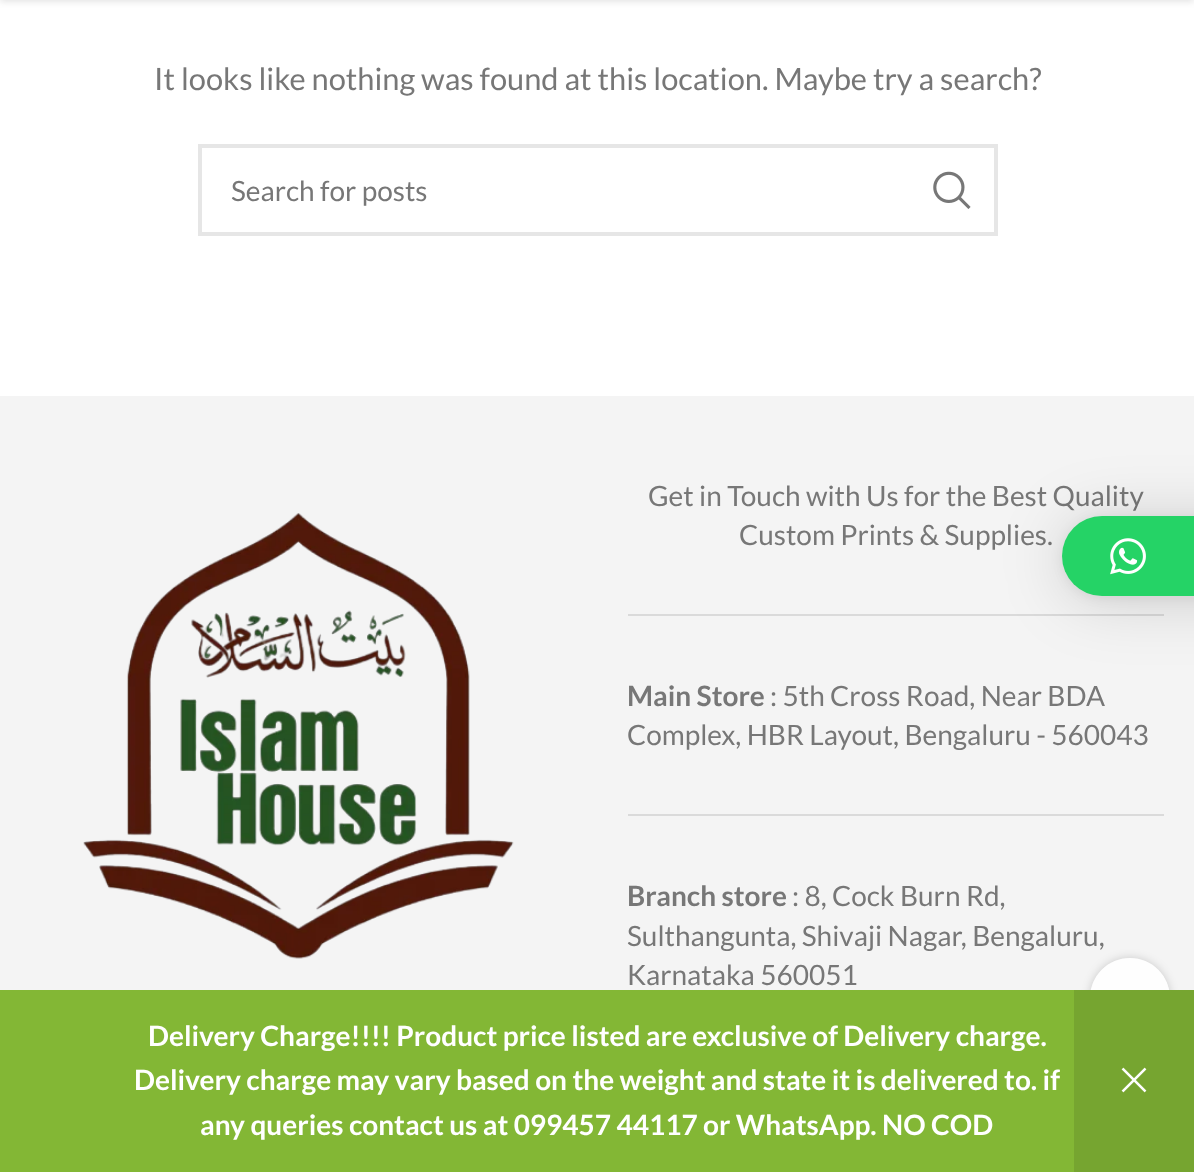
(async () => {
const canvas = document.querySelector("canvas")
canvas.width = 1194
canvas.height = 1172
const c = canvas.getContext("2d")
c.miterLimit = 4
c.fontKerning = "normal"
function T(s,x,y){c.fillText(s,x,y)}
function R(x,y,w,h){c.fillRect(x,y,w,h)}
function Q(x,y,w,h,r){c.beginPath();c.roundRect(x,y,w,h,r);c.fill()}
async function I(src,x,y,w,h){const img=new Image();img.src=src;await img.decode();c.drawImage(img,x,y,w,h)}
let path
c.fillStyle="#fff"
R(0,0,1194,1172)
c.fillStyle="#0000001a"
c.filter="blur(3px)"
c.beginPath()
c.rect(0,-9,1194,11)
c.fill()
c.filter="none"
c.font="30.8px Lato"
c.fillStyle="#777"
T("It looks like nothing was found at this location. Maybe try a search?",154,90)
c.strokeStyle="#e6e6e6"
c.lineWidth=4
c.strokeRect(200,146,796,88)
c.font="28px Lato"
T("Search for posts",231,201)
await I("1.png",933,171,38,38)
c.fillStyle="#f4f4f4"
R(0,396,1194,594)
await I("2.png",83,513,431,446)
c.fillStyle="#dadada"
R(628,614,536,2)
c.fillStyle="#777"
T("Get in Touch with Us for the Best Quality",648,506)
T("Custom Prints & Supplies.",739,545)
c.fillStyle="#dadada"
R(628,814,536,2)
c.font="bold 28px Lato"
c.fillStyle="#777"
T("Main Store",627,706)
c.font="28px Lato"
T(": 5th Cross Road, Near BDA",770,706)
T("Complex, HBR Layout, Bengaluru - 560043",627,745)
c.font="bold 28px Lato"
T("Branch store",627,906)
c.font="28px Lato"
T(": 8, Cock Burn Rd,",792,906)
T("Sulthangunta, Shivaji Nagar, Bengaluru,",627,946)
T("Karnataka 560051",627,985)
c.fillStyle="#00000029"
c.filter="blur(32px)"
c.beginPath()
c.roundRect(1062,520,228,80,40)
c.fill()
c.filter="none"
c.fillStyle="#0000000f"
c.filter="blur(6px)"
c.beginPath()
c.roundRect(1062,518,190,80,40)
c.fill()
c.filter="none"
c.fillStyle="#25d366"
Q(1062,516,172,80,40)
await I("3.png",1110,538,36,37)
c.save()
path = new Path2D("M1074 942h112v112h-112zm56 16c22 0 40 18 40 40c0 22-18 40-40 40c-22 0-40-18-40-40c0-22 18-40 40-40z")
c.clip(path,"evenodd")
c.fillStyle="#0000002b"
c.filter="blur(5px)"
c.beginPath()
c.roundRect(1090,958,80,80,40)
c.fill()
c.filter="none"
c.restore()
c.fillStyle="#ffffffe6"
c.beginPath()
c.arc(1130,998,40,0,7)
c.fill()
c.fillStyle="#83b735"
R(0,990,1074,182)
c.font="bold 28px Lato"
c.fillStyle="#fff"
T("Delivery Charge!!!! Product price listed are exclusive of Delivery charge.",148,1046)
c.fillStyle="#76a530"
R(1074,990,120,182)
await I("4.png",1121,1067,26,26)
c.fillStyle="#fff"
T("Delivery charge may vary based on the weight and state it is delivered to. if",134,1090)
T("any queries contact us at 099457 44117 or WhatsApp. NO COD",200,1135)
})()
